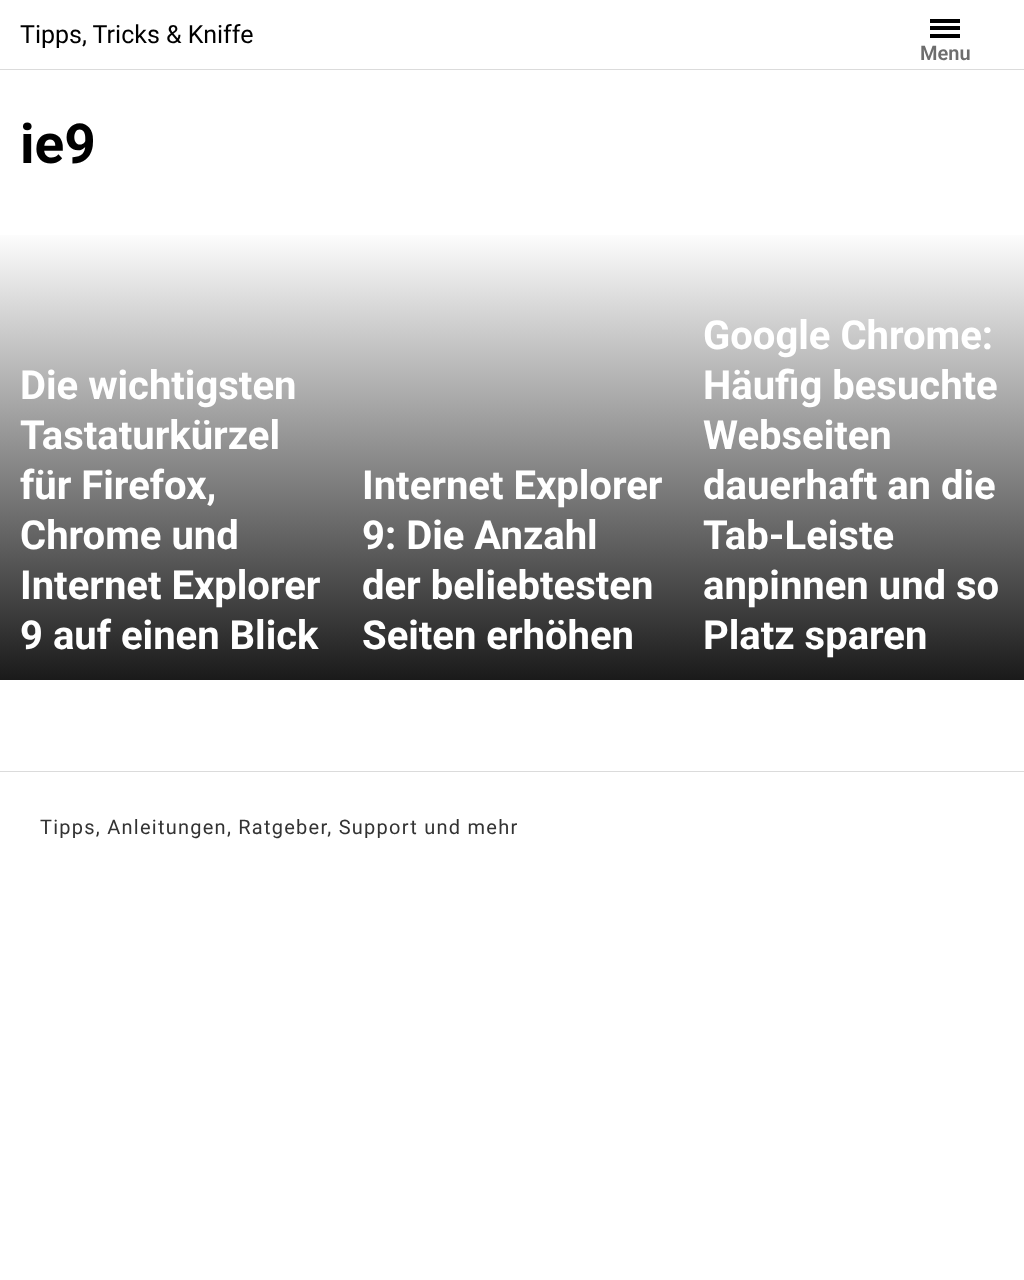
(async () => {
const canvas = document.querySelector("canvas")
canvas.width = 1024
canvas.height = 1280
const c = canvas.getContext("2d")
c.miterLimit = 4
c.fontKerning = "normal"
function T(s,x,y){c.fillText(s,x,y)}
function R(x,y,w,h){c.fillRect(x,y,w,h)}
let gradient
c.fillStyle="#fff"
R(0,0,1024,1280)
c.fillStyle="#dbdbdb"
R(0,69,1024,1)
c.font="25px Roboto"
c.fillStyle="#000"
T("Tipps, Tricks & Kniffe",20,43)
R(930,26,30,4)
R(930,19,30,4)
R(930,34,30,4)
c.font="600 20px Roboto"
c.fillStyle="#6d6d6d"
T("Menu",920,60)
c.font="bold 55px Roboto"
c.fillStyle="#000"
T("ie9",20,163)
gradient = c.createLinearGradient(171,230,171,680)
gradient.addColorStop(0,"#fff")
gradient.addColorStop(1,"#1a1a1a")
c.fillStyle = gradient
R(0,235,341,445)
c.font="bold 40px Roboto"
c.fillStyle="#fff"
T("Die wichtigsten",20,399)
T("Tastaturkürzel",20,449)
T("für Firefox,",20,499)
T("Chrome und",20,549)
T("Internet Explorer",20,599)
T("9 auf einen Blick",20,649)
gradient = c.createLinearGradient(513,230,513,680)
gradient.addColorStop(0,"#fff")
gradient.addColorStop(1,"#1a1a1a")
c.fillStyle = gradient
R(341,235,343,445)
c.fillStyle="#fff"
T("Internet Explorer",362,499)
T("9: Die Anzahl",362,549)
T("der beliebtesten",362,599)
T("Seiten erhöhen",362,649)
gradient = c.createLinearGradient(854,230,854,680)
gradient.addColorStop(0,"#fff")
gradient.addColorStop(1,"#1a1a1a")
c.fillStyle = gradient
R(684,235,340,445)
c.fillStyle="#fff"
T("Google Chrome:",703,349)
T("Häufig besuchte",703,399)
T("Webseiten",703,449)
T("dauerhaft an die",703,499)
T("Tab-Leiste",703,549)
T("anpinnen und so",703,599)
T("Platz sparen",703,649)
c.fillStyle="#dbdbdb"
R(0,771,1024,1)
c.letterSpacing="1.25px"
c.font="20px Roboto"
c.fillStyle="#333"
T("Tipps, Anleitungen, Ratgeber, Support und mehr",40,834)
})()
